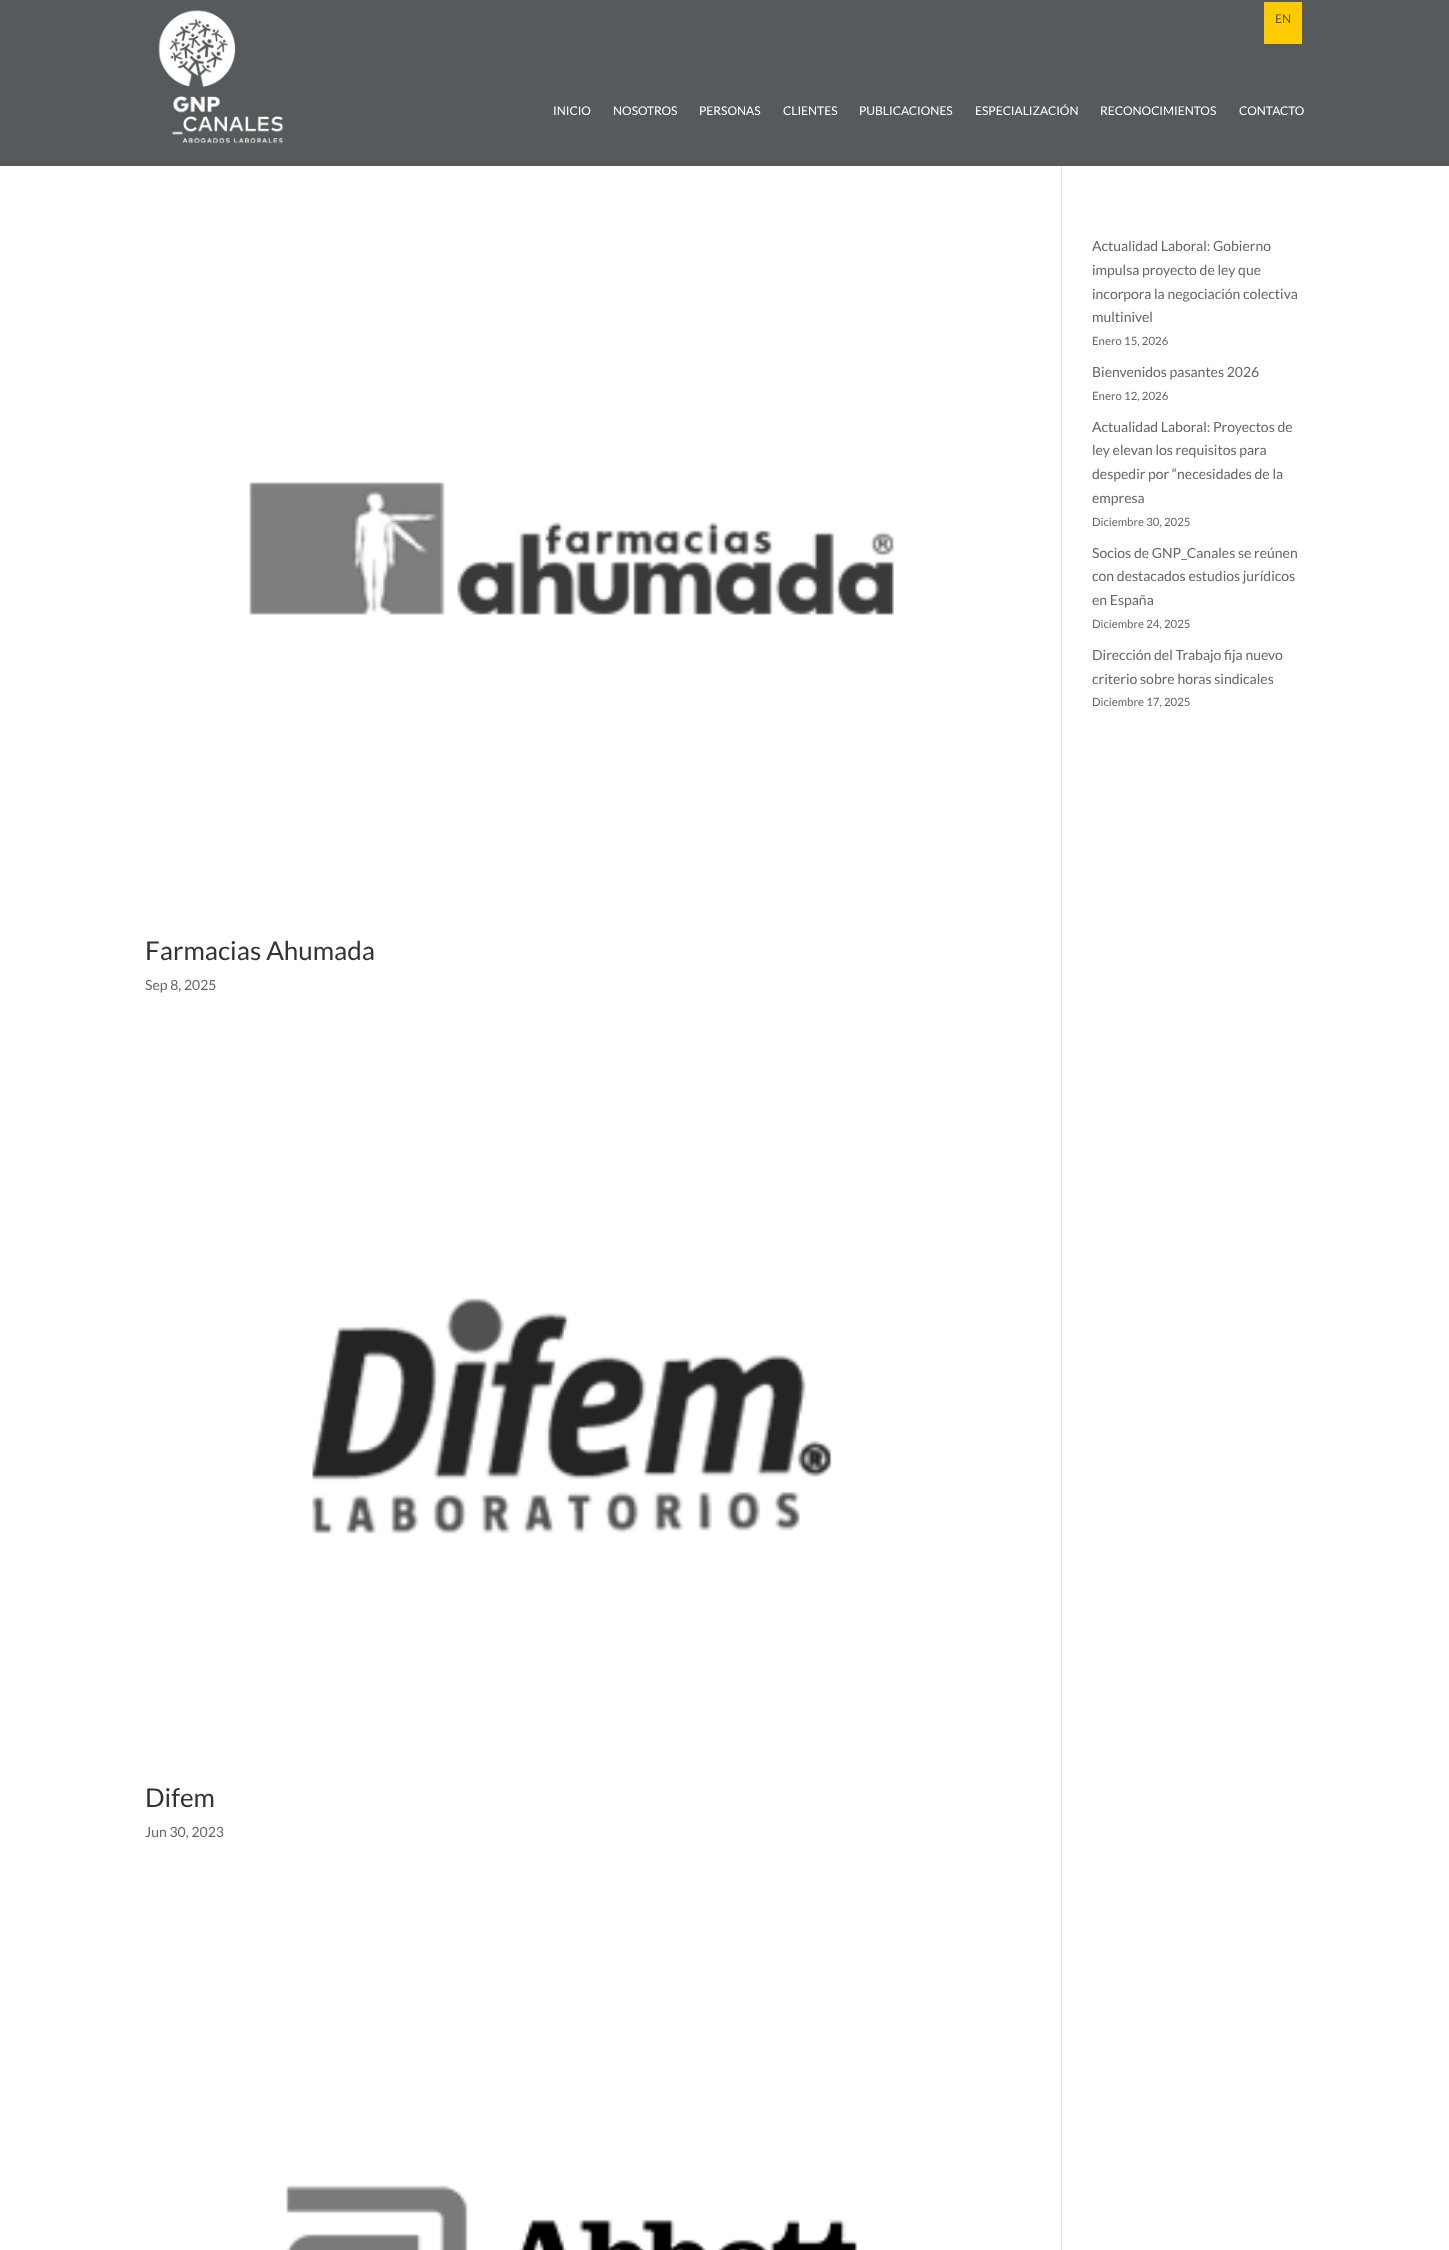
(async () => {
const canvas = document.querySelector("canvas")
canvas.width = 1449
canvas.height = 2250
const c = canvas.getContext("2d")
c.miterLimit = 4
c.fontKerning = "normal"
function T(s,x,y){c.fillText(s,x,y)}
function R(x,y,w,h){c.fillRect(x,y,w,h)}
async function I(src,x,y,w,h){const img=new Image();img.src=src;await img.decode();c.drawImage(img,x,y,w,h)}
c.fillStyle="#fff"
R(0,0,1449,2250)
c.fillStyle="#565a5c"
R(0,0,1449,166)
await I("1.png",158,10,125,134)
c.fillStyle="#fecb00"
R(1264,2,38,42)
c.font="12px Lato"
c.fillStyle="#665100"
T("EN",1275,23)
c.fillStyle="#fff"
T("INICIO",553,115)
T("NOSOTROS",613,115)
T("PERSONAS",699,115)
T("CLIENTES",783,115)
T("PUBLICACIONES",859,115)
T("ESPECIALIZACIÓN",975,115)
T("RECONOCIMIENTOS",1100,115)
T("CONTACTO",1239,115)
c.fillStyle="#e2e2e2"
R(1061,166,1,2084)
c.font="14px Lato"
c.fillStyle="#666"
T("Actualidad Laboral: Gobierno",1092,251)
T("impulsa proyecto de ley que",1092,275)
T("incorpora la negociación colectiva",1092,299)
T("multinivel",1092,322)
c.font="11.4px Lato"
T("Enero 15, 2026",1092,345)
c.font="14px Lato"
T("Bienvenidos pasantes 2026",1092,377)
c.font="11.4px Lato"
T("Enero 12, 2026",1092,400)
c.font="14px Lato"
T("Actualidad Laboral: Proyectos de",1092,432)
T("ley elevan los requisitos para",1092,455)
T("despedir por “necesidades de la",1092,479)
T("empresa",1092,503)
c.font="11.4px Lato"
T("Diciembre 30, 2025",1092,526)
c.font="14px Lato"
T("Socios de GNP_Canales se reúnen",1092,558)
T("con destacados estudios jurídicos",1092,581)
T("en España",1092,605)
c.font="11.4px Lato"
T("Diciembre 24, 2025",1092,628)
c.font="14px Lato"
T("Dirección del Trabajo fija nuevo",1092,660)
T("criterio sobre horas sindicales",1092,684)
c.font="11.4px Lato"
T("Diciembre 17, 2025",1092,706)
await I("2.png",249,482,645,133)
c.font="26px Lato"
c.fillStyle="#333"
T("Farmacias Ahumada",145,960)
c.font="14px Lato"
c.fillStyle="#666"
T("Sep 8, 2025",145,990)
await I("3.png",312,1298,520,236)
c.font="26px Lato"
c.fillStyle="#333"
T("Difem",145,1807)
c.font="14px Lato"
c.fillStyle="#666"
T("Jun 30, 2023",145,1837)
await I("4.png",286,2185,571,65)
})()
